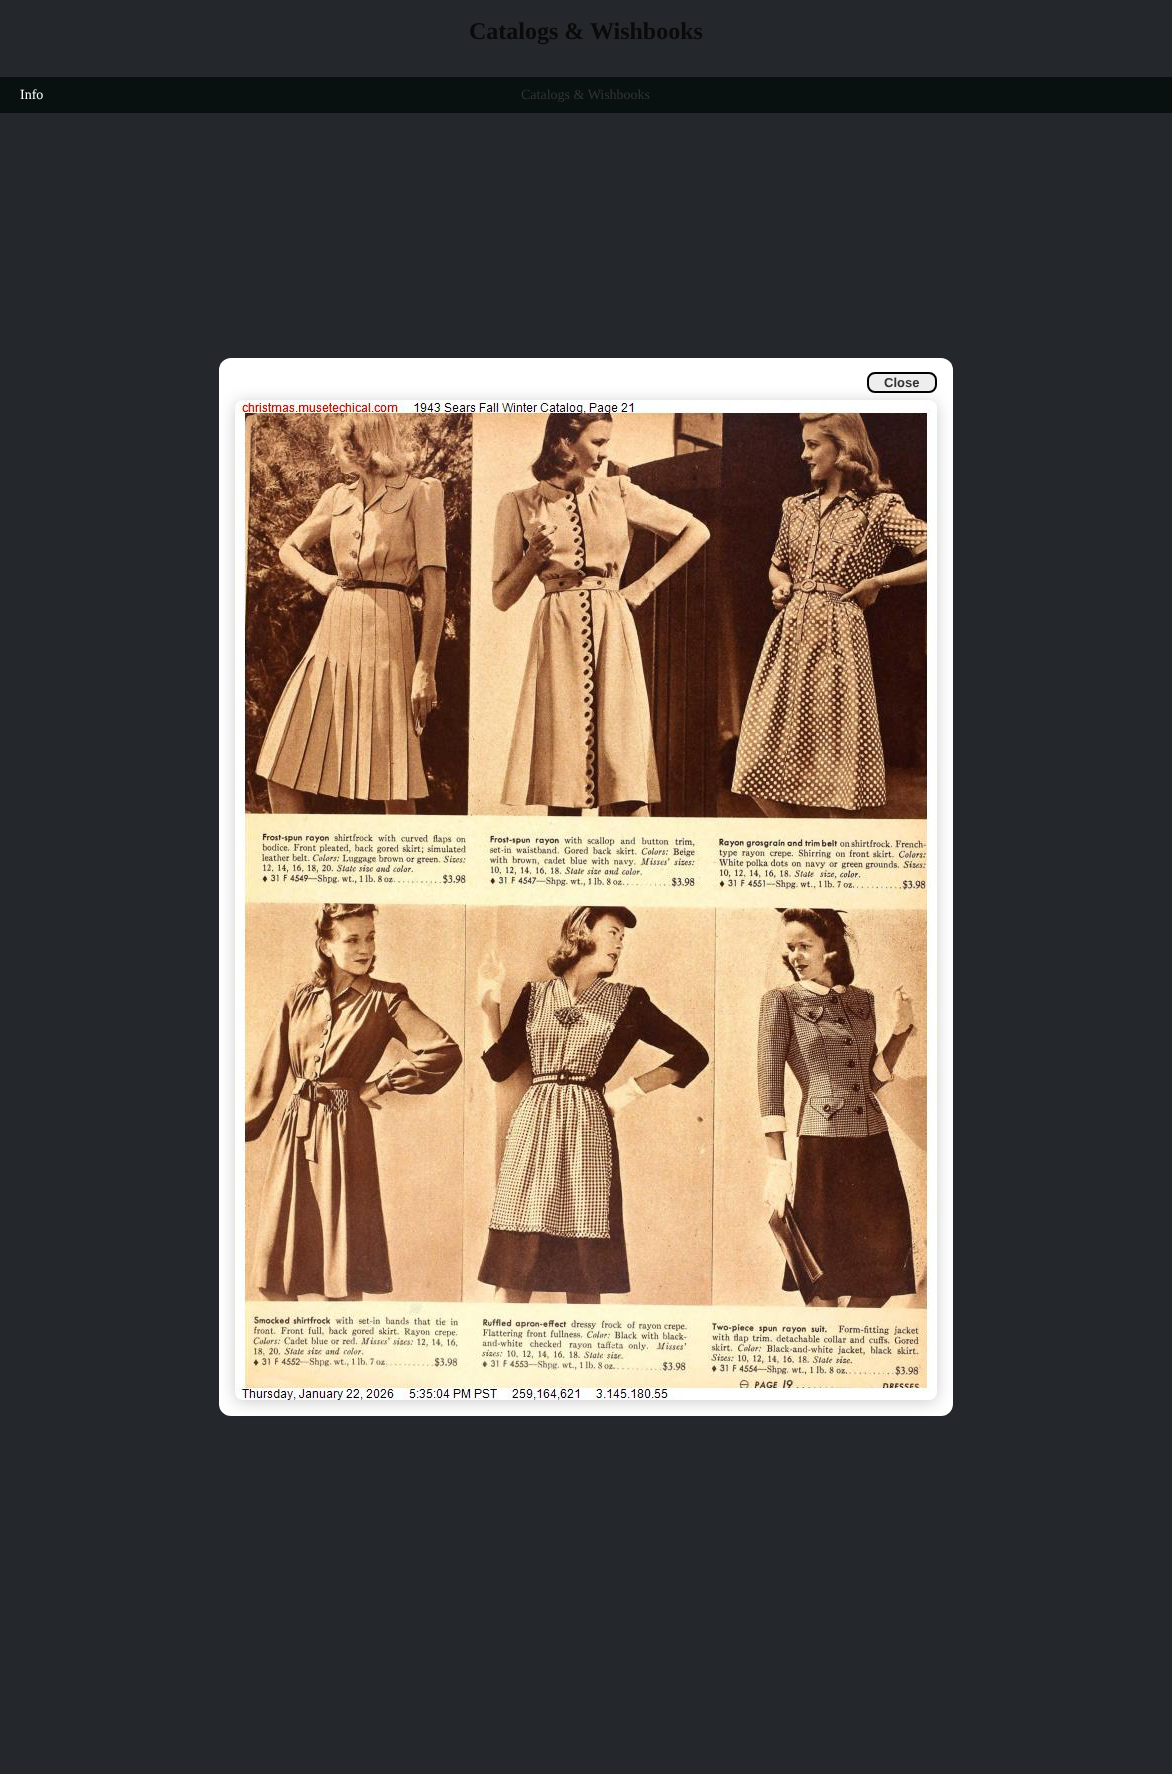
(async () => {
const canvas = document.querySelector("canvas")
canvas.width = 1172
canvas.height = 1774
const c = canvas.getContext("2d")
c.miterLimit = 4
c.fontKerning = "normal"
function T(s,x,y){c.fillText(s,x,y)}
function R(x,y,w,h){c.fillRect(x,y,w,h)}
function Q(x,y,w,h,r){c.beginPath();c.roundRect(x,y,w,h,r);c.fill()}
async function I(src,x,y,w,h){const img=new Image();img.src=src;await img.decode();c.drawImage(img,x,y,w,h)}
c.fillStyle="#24282d"
R(0,0,1172,1774)
c.fillStyle="#091010"
R(0,77,1172,36)
c.font="14px Liberation Serif"
c.fillStyle="#fff"
T("Info",20,99)
c.fillStyle="#333"
T("Catalogs & Wishbooks",521,99)
c.font="bold 24px Liberation Serif"
c.fillStyle="#0a0a0a"
T("Catalogs & Wishbooks",469,39)
c.fillStyle="#fff"
Q(219,358,734,1058,12)
c.fillStyle="#00000033"
c.filter="blur(8px)"
c.beginPath()
c.roundRect(235,402,702,1000,8)
c.fill()
c.filter="none"
await I("1.png",235,400,702,1000)
c.fillStyle="#eee"
c.beginPath()
c.roundRect(868,373,68,19,7)
c.fill()
c.strokeStyle="#000"
c.lineWidth=2
c.stroke()
c.font="bold 13px Liberation Sans"
c.fillStyle="#333"
T("Close",884,387)
})()
